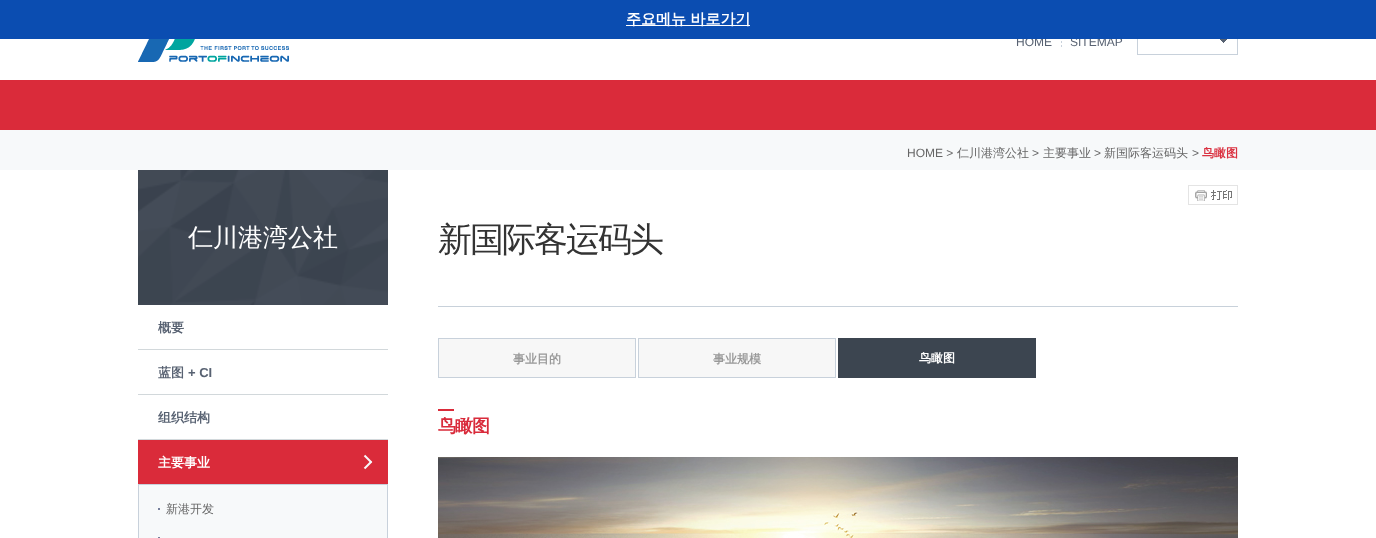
<svg xmlns="http://www.w3.org/2000/svg" width="1376" height="538">
<rect width="100%" height="100%" fill="#fff"/>
<text x="1016" y="46" style="font-family:Liberation Sans;font-size:12px;fill:#586272">HOME</text>
<text x="1070" y="46" style="font-family:Liberation Sans;font-size:12px;fill:#586272">SITEMAP</text>
<image x="1219" y="39" width="9" height="4" href="media/3.png"/>
<rect x="1137.5" y="25.5" width="100" height="29" fill="none" stroke="#c8d1db"/>
<rect width="1376" height="39" fill="#0b4db1"/>
<rect x="626" y="25" width="124" height="1" fill="#fff"/>
<text x="626" y="24" style="font-family:WenQuanYi Zen Hei;font-size:15px;font-weight:bold;fill:#fff">주요메뉴 바로가기</text>
<rect y="80" width="1376" height="50" fill="#da2b3a"/>
<image x="138" y="39" width="151" height="23" href="media/1.png"/>
<image x="1061" y="39" width="1" height="8" href="media/2.png"/>
<rect y="130" width="1376" height="40" fill="#f7f9fa"/>
<image x="138" y="170" width="250" height="135" href="media/4.png"/>
<text x="188" y="246" style="font-family:WenQuanYi Zen Hei;font-size:25px;font-weight:500;fill:#fff">仁川港湾公社</text>
<rect x="138" y="349" width="250" height="1" fill="#d2d8db"/>
<text x="158" y="332" style="font-family:WenQuanYi Zen Hei;font-size:13px;font-weight:bold;fill:#586272">概要</text>
<rect x="138" y="394" width="250" height="1" fill="#d2d8db"/>
<text x="158" y="377" style="font-family:WenQuanYi Zen Hei;font-size:13px;font-weight:bold;fill:#586272">蓝图</text>
<text x="188" y="377" style="font-family:Liberation Sans;font-size:13px;font-weight:bold;fill:#586272">+ CI</text>
<rect x="138" y="439" width="250" height="1" fill="#d2d8db"/>
<text x="158" y="422" style="font-family:WenQuanYi Zen Hei;font-size:13px;font-weight:bold;fill:#586272">组织结构</text>
<image x="138" y="440" width="250" height="44" href="media/5.png"/>
<rect x="138" y="484" width="250" height="1" fill="#c8d1db"/>
<text x="158" y="467" style="font-family:WenQuanYi Zen Hei;font-size:13px;font-weight:bold;fill:#fff">主要事业</text>
<rect x="139" y="485" width="248" height="53" fill="#f7f9fa"/>
<rect x="387" y="485" width="1" height="53" fill="#c8d1db"/>
<rect x="138" y="485" width="1" height="53" fill="#c8d1db"/>
<rect x="158" y="508" width="2" height="2" fill="#757e9b"/>
<text x="166" y="513" style="font-family:WenQuanYi Zen Hei;font-size:12px;font-weight:500;fill:#666">新港开发</text>
<rect x="158" y="537" width="2" height="1" fill="#757e9b"/>
<text x="907" y="157" style="font-family:Liberation Sans;font-size:12px;fill:#666">HOME &gt;</text>
<text x="957" y="157" style="font-family:WenQuanYi Zen Hei;font-size:12px;font-weight:500;fill:#666">仁川港湾公社</text>
<text x="1032" y="157" style="font-family:Liberation Sans;font-size:12px;fill:#666">&gt;</text>
<text x="1043" y="157" style="font-family:WenQuanYi Zen Hei;font-size:12px;font-weight:500;fill:#666">主要事业</text>
<text x="1094" y="157" style="font-family:Liberation Sans;font-size:12px;fill:#666">&gt;</text>
<text x="1104" y="157" style="font-family:WenQuanYi Zen Hei;font-size:12px;font-weight:500;fill:#666">新国际客运码头</text>
<text x="1192" y="157" style="font-family:Liberation Sans;font-size:12px;fill:#666">&gt;</text>
<text x="1202" y="157" style="font-family:WenQuanYi Zen Hei;font-size:12px;font-weight:bold;fill:#da3241">鸟瞰图</text>
<image x="1188" y="185" width="50" height="20" href="media/6.png"/>
<rect x="438" y="306" width="800" height="1" fill="#c8d1da"/>
<text x="438" y="251" style="font-family:WenQuanYi Zen Hei;font-size:34px;font-weight:500;letter-spacing:-2px;fill:#333">新国际客运码头</text>
<rect x="438.5" y="338.5" width="197" height="39" fill="#f7f7f7" stroke="#c8d1db"/>
<text x="513" y="363" style="font-family:WenQuanYi Zen Hei;font-size:12px;font-weight:bold;fill:#999">事业目的</text>
<rect x="638.5" y="338.5" width="197" height="39" fill="#f7f7f7" stroke="#c8d1db"/>
<text x="713" y="363" style="font-family:WenQuanYi Zen Hei;font-size:12px;font-weight:bold;fill:#999">事业规模</text>
<rect x="838" y="338" width="198" height="40" fill="#3c4550"/>
<text x="919" y="362" style="font-family:WenQuanYi Zen Hei;font-size:12px;font-weight:bold;fill:#fff">鸟瞰图</text>
<rect x="438" y="409" width="16" height="2" fill="#da2b3a"/>
<text x="438" y="432" style="font-family:WenQuanYi Zen Hei;font-size:18px;font-weight:bold;letter-spacing:-1px;fill:#d92b3b">鸟瞰图</text>
<image x="438" y="457" width="800" height="81" href="media/7.png"/>
</svg>
